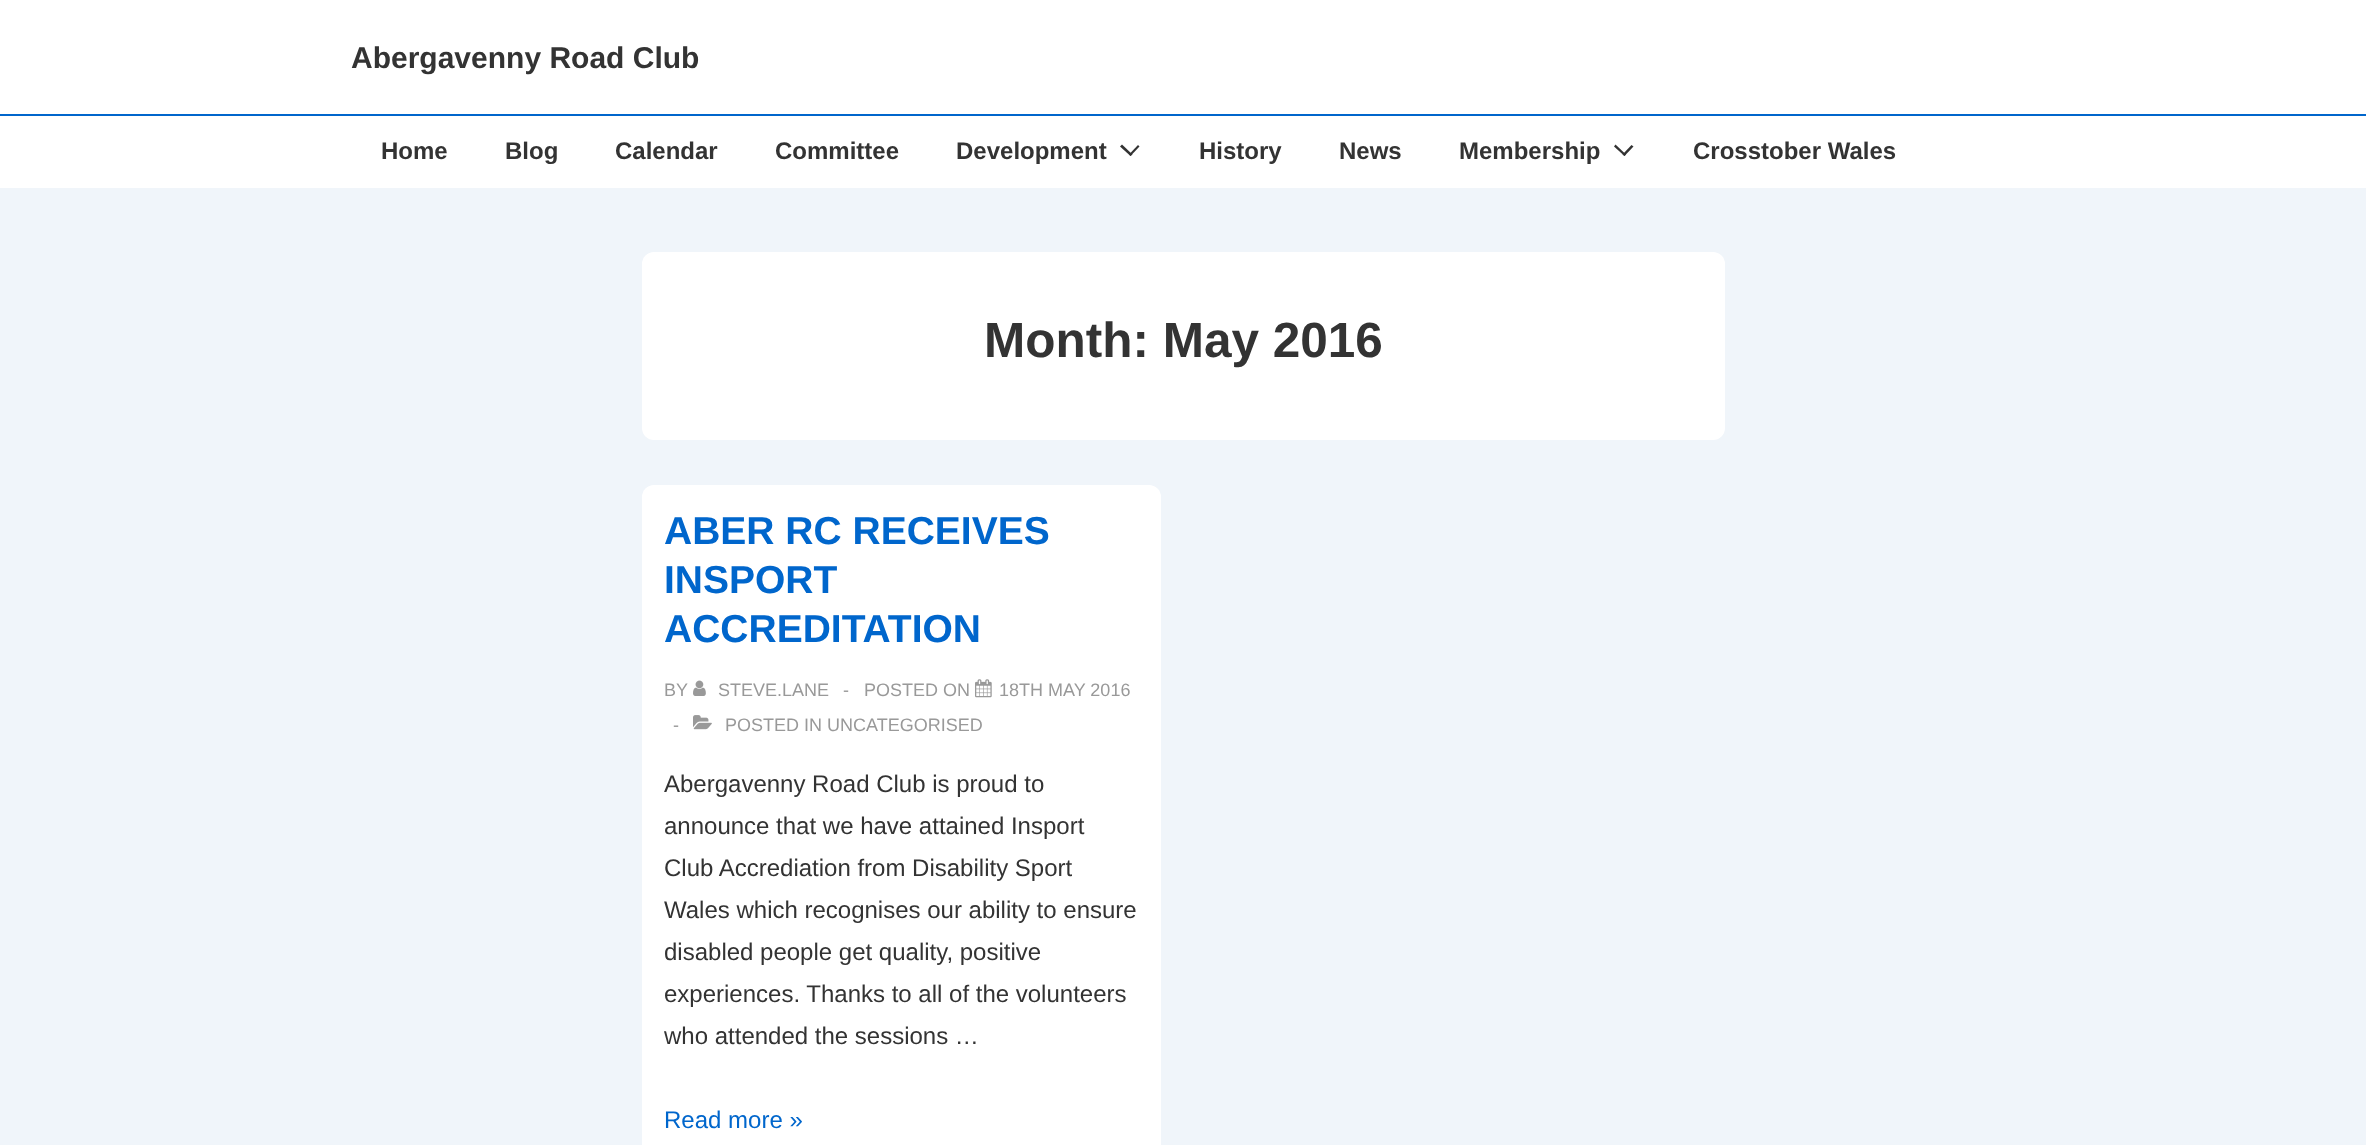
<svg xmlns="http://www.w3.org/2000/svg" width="2366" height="1145">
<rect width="100%" height="100%" fill="#f0f5fa"/>
<rect width="2366" height="114" fill="#fff"/>
<rect y="114" width="2366" height="2" fill="#06c"/>
<text x="351" y="68" style="font-family:Liberation Sans;font-size:30px;font-weight:bold;fill:#333">Abergavenny Road Club</text>
<rect y="116" width="2366" height="72" fill="#fff"/>
<text x="381" y="159" style="font-family:Liberation Sans;font-size:24px;font-weight:bold;fill:#333">Home</text>
<text x="505" y="159" style="font-family:Liberation Sans;font-size:24px;font-weight:bold;fill:#333">Blog</text>
<text x="615" y="159" style="font-family:Liberation Sans;font-size:24px;font-weight:bold;fill:#333">Calendar</text>
<text x="775" y="159" style="font-family:Liberation Sans;font-size:24px;font-weight:bold;fill:#333">Committee</text>
<text x="956" y="159" style="font-family:Liberation Sans;font-size:24px;font-weight:bold;fill:#333">Development</text>
<path d="M1120 146.5l2-2l10.5 10l-2 1.5z" fill="#333"/>
<path d="M1129 154.5l9-9.5l1.5 1.5l-9 9.5z" fill="#333"/>
<text x="1199" y="159" style="font-family:Liberation Sans;font-size:24px;font-weight:bold;fill:#333">History</text>
<text x="1339" y="159" style="font-family:Liberation Sans;font-size:24px;font-weight:bold;fill:#333">News</text>
<text x="1459" y="159" style="font-family:Liberation Sans;font-size:24px;font-weight:bold;fill:#333">Membership</text>
<path d="M1614 146.5l1.5-2l10.5 10l-1.5 1.5z" fill="#333"/>
<path d="M1622.5 154.5l9-9.5l2 1.5l-9 9.5z" fill="#333"/>
<text x="1693" y="159" style="font-family:Liberation Sans;font-size:24px;font-weight:bold;fill:#333">Crosstober Wales</text>
<rect x="642" y="252" width="1083" height="188" rx="12" fill="#fff"/>
<text x="984" y="357" style="font-family:Liberation Sans;font-size:49.5px;font-weight:bold;fill:#333">Month: May 2016</text>
<rect x="642" y="485" width="519" height="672" rx="12" fill="#fff"/>
<text x="664" y="544" style="font-family:Liberation Sans;font-size:39px;font-weight:bold;fill:#06c">ABER RC RECEIVES</text>
<text x="664" y="593" style="font-family:Liberation Sans;font-size:39px;font-weight:bold;fill:#06c">INSPORT</text>
<text x="664" y="642" style="font-family:Liberation Sans;font-size:39px;font-weight:bold;fill:#06c">ACCREDITATION</text>
<text x="664" y="696" style="font-family:Liberation Sans;font-size:18px;fill:#999">BY</text>
<image x="693" y="680" width="13" height="16" href="media/1.png"/>
<text x="718" y="696" style="font-family:Liberation Sans;font-size:18px;fill:#999">STEVE.LANE</text>
<text x="843" y="696" style="font-family:Liberation Sans;font-size:18px;fill:#999">-</text>
<text x="864" y="696" style="font-family:Liberation Sans;font-size:18px;fill:#999">POSTED ON</text>
<image x="975" y="679" width="17" height="19" href="media/2.png"/>
<text x="999" y="696" style="font-family:Liberation Sans;font-size:18px;fill:#999">18TH MAY 2016</text>
<text x="673" y="731" style="font-family:Liberation Sans;font-size:18px;fill:#999">-</text>
<image x="693" y="715" width="19" height="15" href="media/3.png"/>
<text x="725" y="731" style="font-family:Liberation Sans;font-size:18px;fill:#999">POSTED IN UNCATEGORISED</text>
<text x="664" y="792" style="font-family:Liberation Sans;font-size:24px;fill:#333">Abergavenny Road Club is proud to</text>
<text x="664" y="834" style="font-family:Liberation Sans;font-size:24px;fill:#333">announce that we have attained Insport</text>
<text x="664" y="876" style="font-family:Liberation Sans;font-size:24px;fill:#333">Club Accrediation from Disability Sport</text>
<text x="664" y="918" style="font-family:Liberation Sans;font-size:24px;fill:#333">Wales which recognises our ability to ensure</text>
<text x="664" y="960" style="font-family:Liberation Sans;font-size:24px;fill:#333">disabled people get quality, positive</text>
<text x="664" y="1002" style="font-family:Liberation Sans;font-size:24px;fill:#333">experiences. Thanks to all of the volunteers</text>
<text x="664" y="1044" style="font-family:Liberation Sans;font-size:24px;fill:#333">who attended the sessions …</text>
<text x="664" y="1128" style="font-family:Liberation Sans;font-size:24px;fill:#06c">Read more »</text>
</svg>
